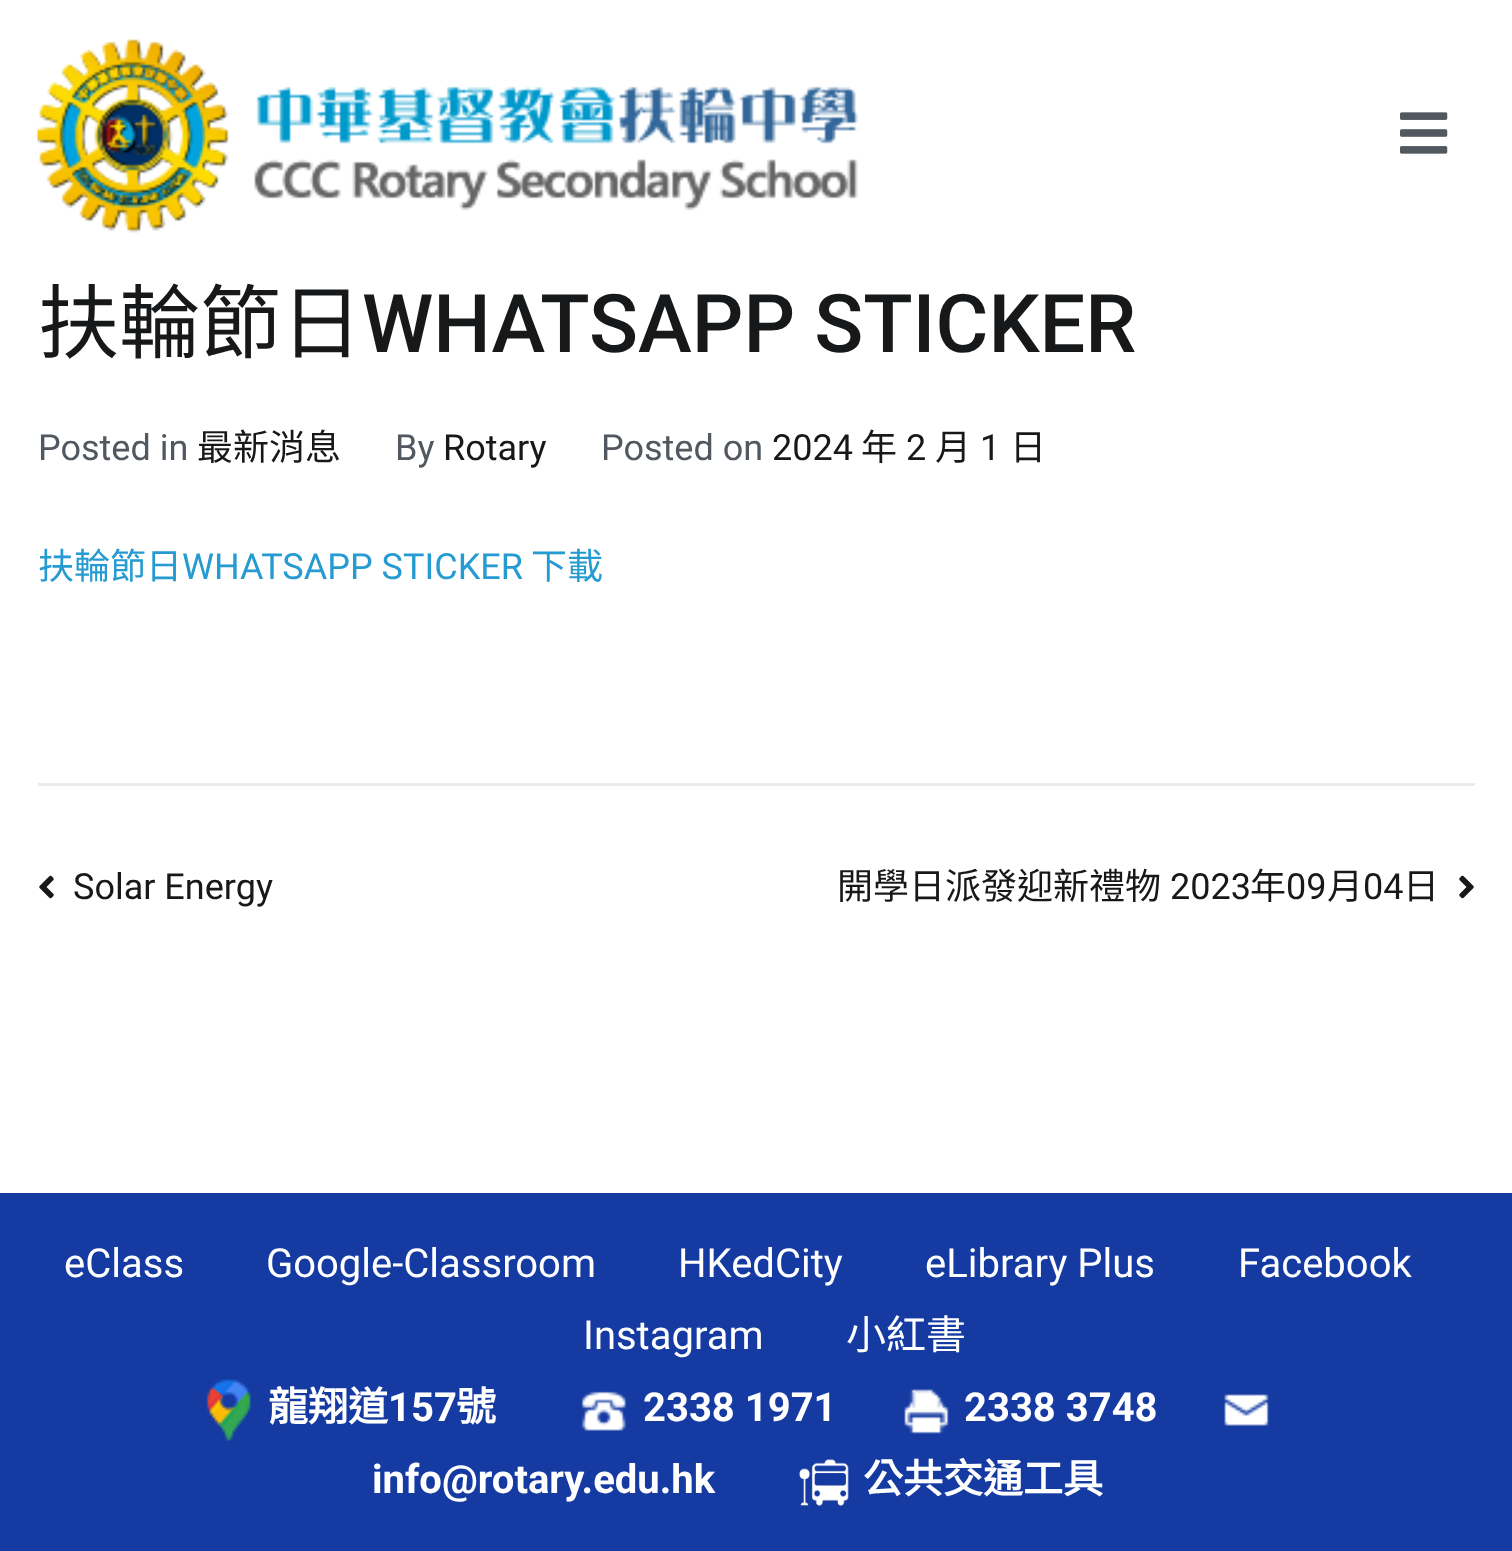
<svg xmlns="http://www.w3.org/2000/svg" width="1512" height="1551">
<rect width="100%" height="100%" fill="#fff"/>
<image x="37" y="39" width="822" height="194" href="media/1.png"/>
<image x="1400" y="112" width="48" height="42" href="media/2.png"/>
<text x="38" y="352" style="font-family:Noto Sans CJK TC;font-size:81px;fill:#16181a">扶輪節日</text>
<text x="362" y="352" word-spacing="-1" style="font-family:Roboto;font-size:81px;font-weight:500;fill:#16181a">WHATSAPP STICKER</text>
<text x="38" y="460" style="font-family:Roboto;font-size:36px;fill:#51585f">Posted in</text>
<text x="197" y="460" style="font-family:Noto Sans CJK TC;font-size:36px;fill:#16181a">最新消息</text>
<text x="395" y="460" style="font-family:Roboto;font-size:36px;fill:#51585f">By</text>
<text x="443" y="460" style="font-family:Roboto;font-size:36px;fill:#16181a">Rotary</text>
<text x="601" y="460" style="font-family:Roboto;font-size:36px;fill:#51585f">Posted on</text>
<text x="772" y="460" style="font-family:Roboto;font-size:36px;fill:#16181a">2024</text>
<text x="861" y="460" style="font-family:Noto Sans CJK TC;font-size:36px;fill:#16181a">年</text>
<text x="906" y="460" style="font-family:Roboto;font-size:36px;fill:#16181a">2</text>
<text x="935" y="460" style="font-family:Noto Sans CJK TC;font-size:36px;fill:#16181a">月</text>
<text x="980" y="460" style="font-family:Roboto;font-size:36px;fill:#16181a">1</text>
<text x="1010" y="460" style="font-family:Noto Sans CJK TC;font-size:36px;fill:#16181a">日</text>
<text x="38" y="579" style="font-family:Noto Sans CJK TC;font-size:36px;fill:#269bd1">扶輪節日</text>
<text x="182" y="579" style="font-family:Roboto;font-size:36px;fill:#269bd1">WHATSAPP STICKER</text>
<text x="531" y="579" style="font-family:Noto Sans CJK TC;font-size:36px;fill:#269bd1">下載</text>
<rect x="38" y="783" width="1437" height="3" fill="#e9ecef"/>
<image x="39" y="875" width="15" height="24" href="media/3.png"/>
<text x="73" y="899" style="font-family:Roboto;font-size:36px;fill:#16181a">Solar Energy</text>
<text x="837" y="899" style="font-family:Noto Sans CJK TC;font-size:36px;fill:#16181a">開學日派發迎新禮物</text>
<text x="1170" y="899" style="font-family:Roboto;font-size:36px;fill:#16181a">2023</text>
<text x="1250" y="899" style="font-family:Noto Sans CJK TC;font-size:36px;fill:#16181a">年</text>
<text x="1286" y="899" style="font-family:Roboto;font-size:36px;fill:#16181a">09</text>
<text x="1327" y="899" style="font-family:Noto Sans CJK TC;font-size:36px;fill:#16181a">月</text>
<text x="1363" y="899" style="font-family:Roboto;font-size:36px;fill:#16181a">04</text>
<text x="1403" y="899" style="font-family:Noto Sans CJK TC;font-size:36px;fill:#16181a">日</text>
<image x="1459" y="875" width="15" height="24" href="media/4.png"/>
<rect y="1193" width="1512" height="358" fill="#153ba3"/>
<text x="64" y="1277" style="font-family:Roboto;font-size:40px;fill:#fff">eClass</text>
<text x="266" y="1277" style="font-family:Roboto;font-size:40px;fill:#fff">Google-Classroom</text>
<text x="678" y="1277" style="font-family:Roboto;font-size:40px;fill:#fff">HKedCity</text>
<text x="925" y="1277" style="font-family:Roboto;font-size:40px;fill:#fff">eLibrary Plus</text>
<text x="1238" y="1277" style="font-family:Roboto;font-size:40px;fill:#fff">Facebook</text>
<text x="583" y="1349" style="font-family:Roboto;font-size:40px;fill:#fff">Instagram</text>
<text x="846" y="1349" style="font-family:Noto Sans CJK TC;font-size:40px;fill:#fff">小紅書</text>
<image x="206" y="1379" width="45" height="62" href="media/5.png"/>
<text x="268" y="1421" style="font-family:Noto Sans CJK TC;font-size:40px;font-weight:bold;fill:#fff">龍翔道</text>
<text x="388" y="1421" style="font-family:Roboto;font-size:40px;font-weight:bold;fill:#fff">157</text>
<text x="456" y="1421" style="font-family:Noto Sans CJK TC;font-size:40px;font-weight:bold;fill:#fff">號</text>
<image x="581" y="1391" width="45" height="40" href="media/6.png"/>
<text x="643" y="1421" style="font-family:Roboto;font-size:40px;font-weight:bold;fill:#fff">2338 1971</text>
<image x="904" y="1389" width="45" height="45" href="media/7.png"/>
<text x="964" y="1421" style="font-family:Roboto;font-size:40px;font-weight:bold;fill:#fff">2338 3748</text>
<image x="1224" y="1394" width="45" height="32" href="media/8.png"/>
<text x="372" y="1493" style="font-family:Roboto;font-size:40px;font-weight:bold;fill:#fff">info@rotary.edu.hk</text>
<image x="799" y="1459" width="50" height="47" href="media/9.png"/>
<text x="863" y="1493" style="font-family:Noto Sans CJK TC;font-size:40px;font-weight:bold;fill:#fff">公共交通工具</text>
</svg>
